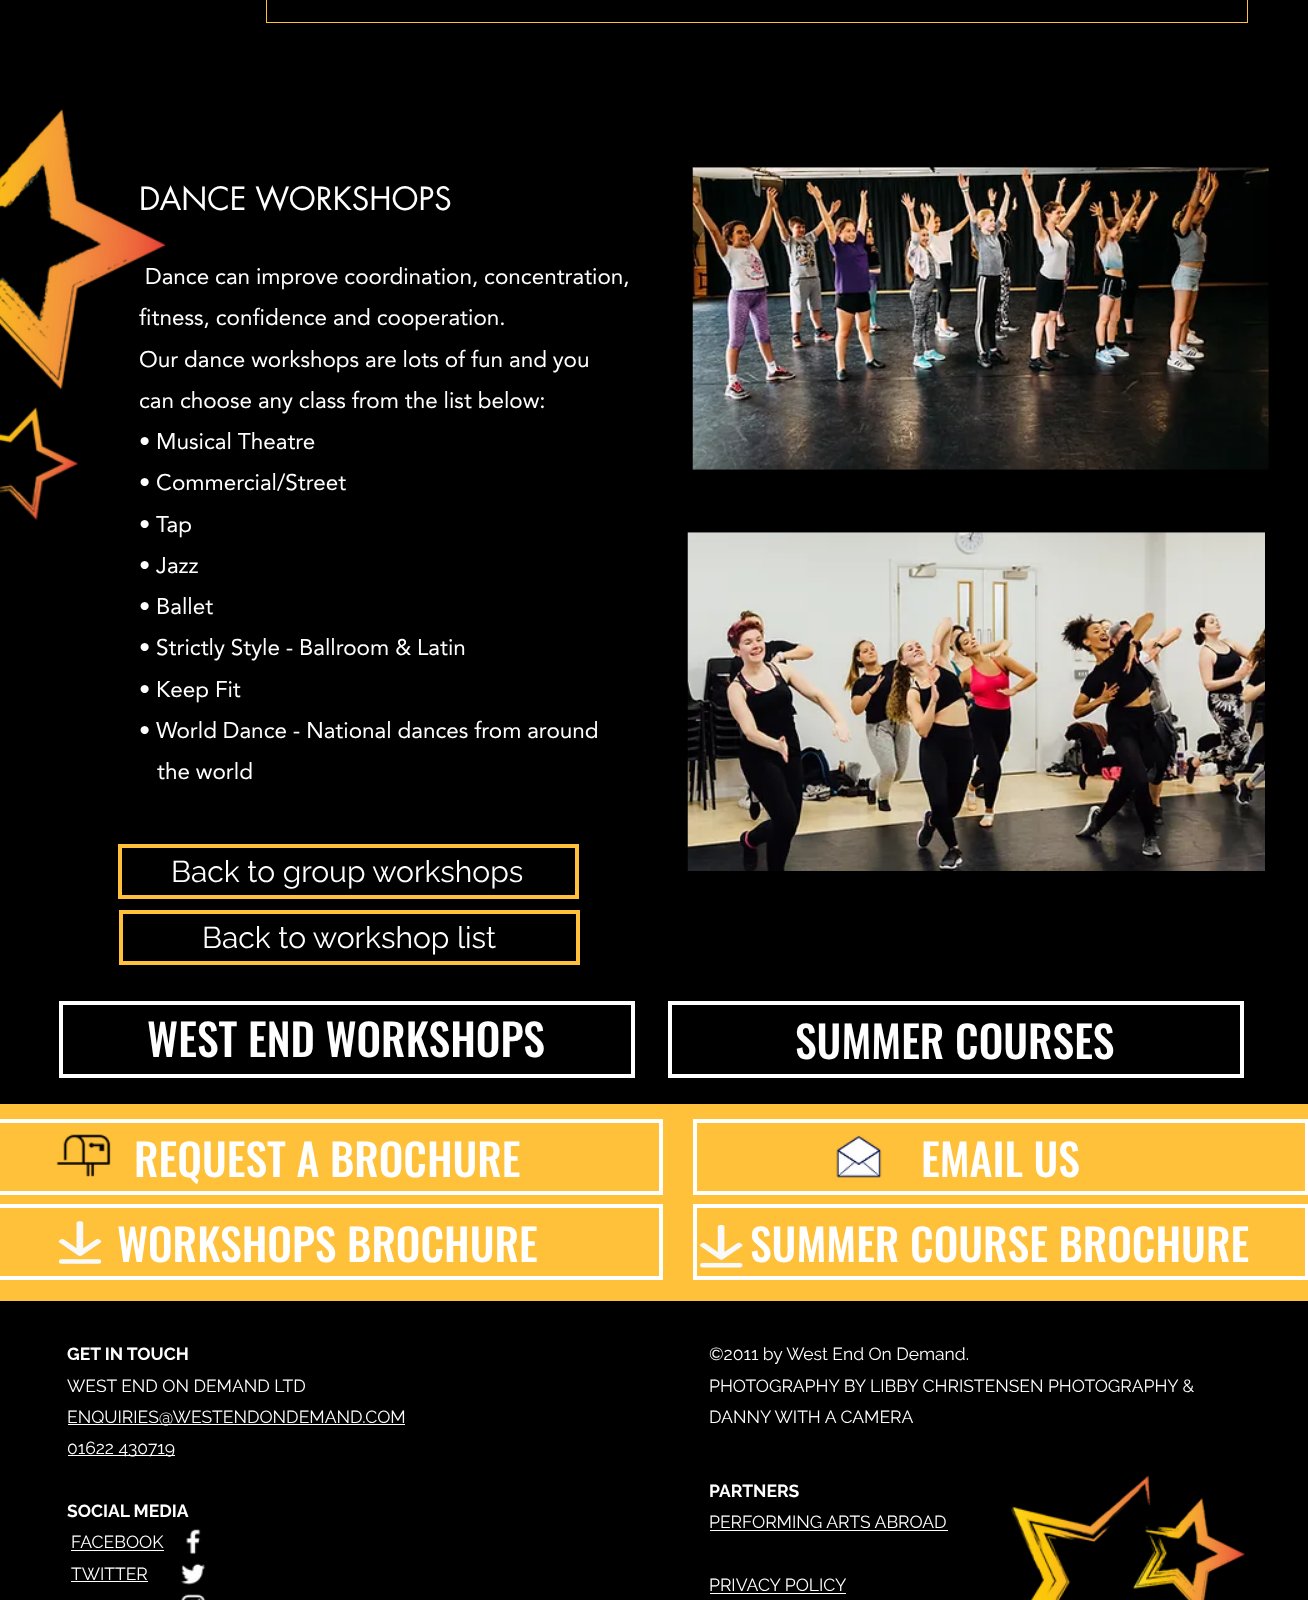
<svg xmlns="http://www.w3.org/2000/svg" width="1308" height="1600">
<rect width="100%" height="100%" fill="#000"/>
<rect x="266.5" y="-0.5" width="981" height="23" fill="none" stroke="#ffc03a"/>
<text x="139" y="210" style="font-family:futura;font-size:31.25px;fill:#fff">DANCE WORKSHOPS</text>
<text x="145" y="284" style="font-family:'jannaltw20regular';font-size:22.5px;fill:#fff">Dance can improve coordination, concentration,</text>
<text x="139" y="325" style="font-family:'jannaltw20regular';font-size:22.5px;fill:#fff">fitness, confidence and cooperation.</text>
<text x="139" y="367" style="font-family:'jannaltw20regular';font-size:22.5px;fill:#fff">Our dance workshops are lots of fun and you</text>
<text x="139" y="408" style="font-family:'jannaltw20regular';font-size:22.5px;fill:#fff">can choose any class from the list below:</text>
<text x="139" y="449" style="font-family:'jannaltw20regular';font-size:22.5px;fill:#fff">• Musical Theatre</text>
<text x="139" y="490" style="font-family:'jannaltw20regular';font-size:22.5px;fill:#fff">• Commercial/Street</text>
<text x="139" y="532" style="font-family:'jannaltw20regular';font-size:22.5px;fill:#fff">• Tap</text>
<image x="0" y="109" width="166" height="411" href="media/1.png"/>
<text x="139" y="573" style="font-family:'jannaltw20regular';font-size:22.5px;fill:#fff">• Jazz</text>
<text x="139" y="614" style="font-family:'jannaltw20regular';font-size:22.5px;fill:#fff">• Ballet</text>
<text x="139" y="655" style="font-family:'jannaltw20regular';font-size:22.5px;fill:#fff">• Strictly Style - Ballroom &amp; Latin</text>
<text x="139" y="697" style="font-family:'jannaltw20regular';font-size:22.5px;fill:#fff">• Keep Fit</text>
<text x="139" y="738" style="font-family:'jannaltw20regular';font-size:22.5px;fill:#fff">• World Dance - National dances from around</text>
<text x="157" y="779" style="font-family:'jannaltw20regular';font-size:22.5px;fill:#fff">the world</text>
<image x="692" y="167" width="577" height="303" href="media/2.png"/>
<image x="687" y="532" width="578" height="339" href="media/3.png"/>
<rect x="120" y="846" width="457" height="51" fill="none" stroke="#ffc03a" stroke-width="4"/>
<text x="171" y="882" style="font-family:Raleway;font-size:30px;fill:#fff">Back to group workshops</text>
<rect x="121" y="912" width="457" height="51" fill="none" stroke="#ffc03a" stroke-width="4"/>
<text x="202" y="948" style="font-family:Raleway;font-size:30px;fill:#fff">Back to workshop list</text>
<rect x="61" y="1003" width="572" height="73" fill="none" stroke="#fff" stroke-width="4"/>
<text x="147" y="1057" style="font-family:Oswald;font-size:43.75px;font-weight:500;fill:#fff">WEST END WORKSHOPS</text>
<rect x="670" y="1003" width="572" height="73" fill="none" stroke="#fff" stroke-width="4"/>
<text x="795" y="1059" style="font-family:Oswald;font-size:43.75px;font-weight:500;fill:#fff">SUMMER COURSES</text>
<rect y="1104" width="1308" height="197" fill="#ffc03a"/>
<rect x="-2" y="1121" width="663" height="72" fill="none" stroke="#fff" stroke-width="4"/>
<image x="56" y="1134" width="55" height="43" href="media/4.png"/>
<text x="134" y="1177" style="font-family:Oswald;font-size:43.75px;font-weight:500;fill:#fff">REQUEST A BROCHURE</text>
<rect x="695" y="1121" width="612" height="72" fill="none" stroke="#fff" stroke-width="4"/>
<image x="836" y="1135" width="46" height="43" href="media/5.png"/>
<text x="921" y="1177" style="font-family:Oswald;font-size:43.75px;font-weight:500;fill:#fff">EMAIL US</text>
<rect x="-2" y="1206" width="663" height="72" fill="none" stroke="#fff" stroke-width="4"/>
<image x="58" y="1221" width="44" height="43" href="media/6.png"/>
<text x="117" y="1262" style="font-family:Oswald;font-size:43.75px;font-weight:500;fill:#fff">WORKSHOPS BROCHURE</text>
<rect x="695" y="1206" width="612" height="72" fill="none" stroke="#fff" stroke-width="4"/>
<image x="700" y="1225" width="43" height="43" href="media/7.png"/>
<text x="750" y="1262" style="font-family:Oswald;font-size:43.75px;font-weight:500;fill:#fff">SUMMER COURSE BROCHURE</text>
<text x="67" y="1360" style="font-family:Raleway;font-size:17.5px;font-weight:bold;fill:#fff">GET IN TOUCH</text>
<text x="67" y="1392" style="font-family:Raleway;font-size:17.5px;fill:#fff">WEST END ON DEMAND LTD</text>
<rect x="68" y="1424" width="337" height="1" fill="#fff"/>
<text x="67" y="1423" style="font-family:Raleway;font-size:17.5px;fill:#fff">ENQUIRIES@WESTENDONDEMAND.COM</text>
<rect x="68" y="1455" width="107" height="1" fill="#fff"/>
<text x="67" y="1454" style="font-family:Raleway;font-size:17.5px;fill:#fff">01622 430719</text>
<text x="67" y="1517" style="font-family:Raleway;font-size:17.5px;font-weight:bold;fill:#fff">SOCIAL MEDIA</text>
<text x="71" y="1548" style="font-family:Raleway;font-size:17.5px;fill:#fff">FACEBOOK</text>
<rect x="71" y="1550" width="93" height="1" fill="#fff"/>
<text x="71" y="1580" style="font-family:Raleway;font-size:17.5px;fill:#fff">TWITTER</text>
<rect x="71" y="1581" width="77" height="1" fill="#fff"/>
<text x="709" y="1360" style="font-family:Raleway;font-size:17.5px;fill:#fff">©2011 by West End On Demand.</text>
<text x="709" y="1392" style="font-family:Raleway;font-size:17.5px;fill:#fff">PHOTOGRAPHY BY LIBBY CHRISTENSEN PHOTOGRAPHY &amp;</text>
<text x="709" y="1423" style="font-family:Raleway;font-size:17.5px;fill:#fff">DANNY WITH A CAMERA</text>
<image x="186" y="1529" width="15" height="25" href="media/8.png"/>
<image x="181" y="1563" width="25" height="22" href="media/9.png"/>
<image x="181" y="1594" width="25" height="6" href="media/10.png"/>
<text x="709" y="1497" style="font-family:Raleway;font-size:17.5px;font-weight:bold;fill:#fff">PARTNERS</text>
<text x="709" y="1528" style="font-family:Raleway;font-size:17.5px;fill:#fff">PERFORMING ARTS ABROAD</text>
<rect x="710" y="1530" width="238" height="1" fill="#fff"/>
<text x="709" y="1591" style="font-family:Raleway;font-size:17.5px;fill:#fff">PRIVACY POLICY</text>
<rect x="710" y="1593" width="136" height="1" fill="#fff"/>
<image x="1010" y="1476" width="235" height="124" href="media/11.png"/>
</svg>
